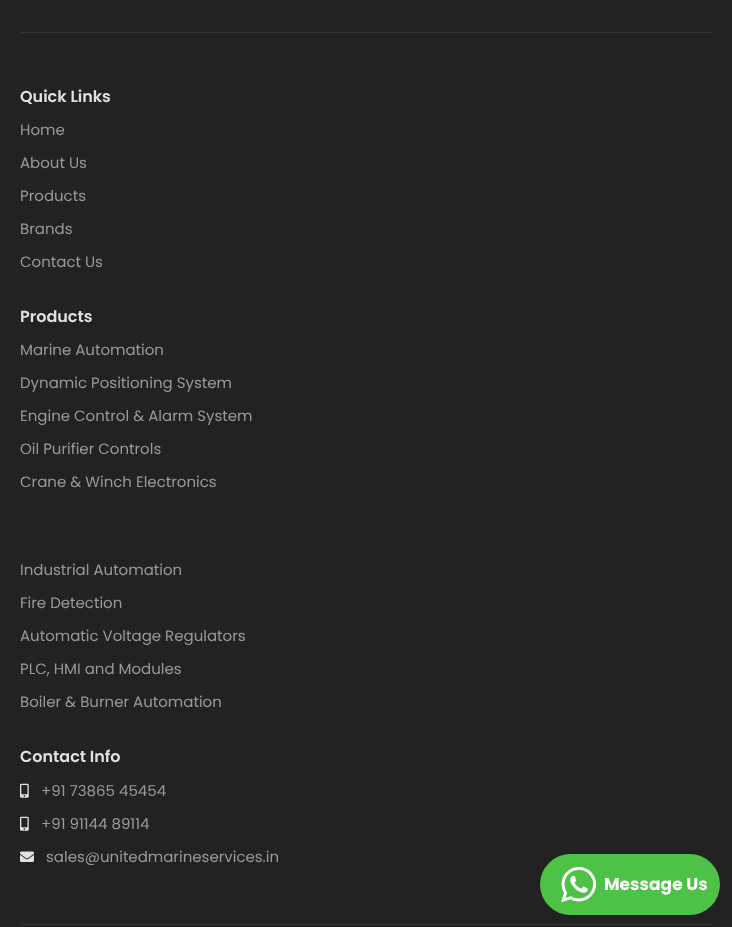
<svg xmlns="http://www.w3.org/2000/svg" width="732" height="927">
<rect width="100%" height="100%" fill="#222"/>
<rect x="20" y="32" width="692" height="1" fill="#333"/>
<rect x="20" y="924" width="692" height="1" fill="#333"/>
<text x="20" y="102" style="font-family:Poppins;font-size:16px;font-weight:600;fill:#e1e1e1">Quick Links</text>
<text x="20" y="135" style="font-family:Poppins;font-size:15px;fill:#999">Home</text>
<text x="20" y="168" style="font-family:Poppins;font-size:15px;fill:#999">About Us</text>
<text x="20" y="201" style="font-family:Poppins;font-size:15px;fill:#999">Products</text>
<text x="20" y="234" style="font-family:Poppins;font-size:15px;fill:#999">Brands</text>
<text x="20" y="267" style="font-family:Poppins;font-size:15px;fill:#999">Contact Us</text>
<text x="20" y="322" style="font-family:Poppins;font-size:16px;font-weight:600;fill:#e1e1e1">Products</text>
<text x="20" y="355" style="font-family:Poppins;font-size:15px;fill:#999">Marine Automation</text>
<text x="20" y="388" style="font-family:Poppins;font-size:15px;fill:#999">Dynamic Positioning System</text>
<text x="20" y="421" style="font-family:Poppins;font-size:15px;fill:#999">Engine Control &amp; Alarm System</text>
<text x="20" y="454" style="font-family:Poppins;font-size:15px;fill:#999">Oil Purifier Controls</text>
<text x="20" y="487" style="font-family:Poppins;font-size:15px;fill:#999">Crane &amp; Winch Electronics</text>
<text x="20" y="575" style="font-family:Poppins;font-size:15px;fill:#999">Industrial Automation</text>
<text x="20" y="608" style="font-family:Poppins;font-size:15px;fill:#999">Fire Detection</text>
<text x="20" y="641" style="font-family:Poppins;font-size:15px;fill:#999">Automatic Voltage Regulators</text>
<text x="20" y="674" style="font-family:Poppins;font-size:15px;fill:#999">PLC, HMI and Modules</text>
<text x="20" y="707" style="font-family:Poppins;font-size:15px;fill:#999">Boiler &amp; Burner Automation</text>
<text x="20" y="762" style="font-family:Poppins;font-size:16px;font-weight:600;fill:#e1e1e1">Contact Info</text>
<image x="20" y="783" width="9" height="15" href="media/1.png"/>
<text x="41" y="796" style="font-family:Poppins;font-size:15px;fill:#999">+91 73865 45454</text>
<image x="20" y="816" width="9" height="15" href="media/1.png"/>
<text x="41" y="829" style="font-family:Poppins;font-size:15px;fill:#999">+91 91144 89114</text>
<image x="20" y="851" width="14" height="11" href="media/2.png"/>
<text x="46" y="862" style="font-family:Poppins;font-size:15px;fill:#999">sales@unitedmarineservices.in</text>
<rect x="540" y="854" width="180" height="61" rx="30.5" fill="#4dc247"/>
<image x="561" y="867" width="35" height="36" href="media/3.png"/>
<text x="604" y="890" style="font-family:Poppins;font-size:17px;font-weight:bold;fill:#fff">Message Us</text>
</svg>
